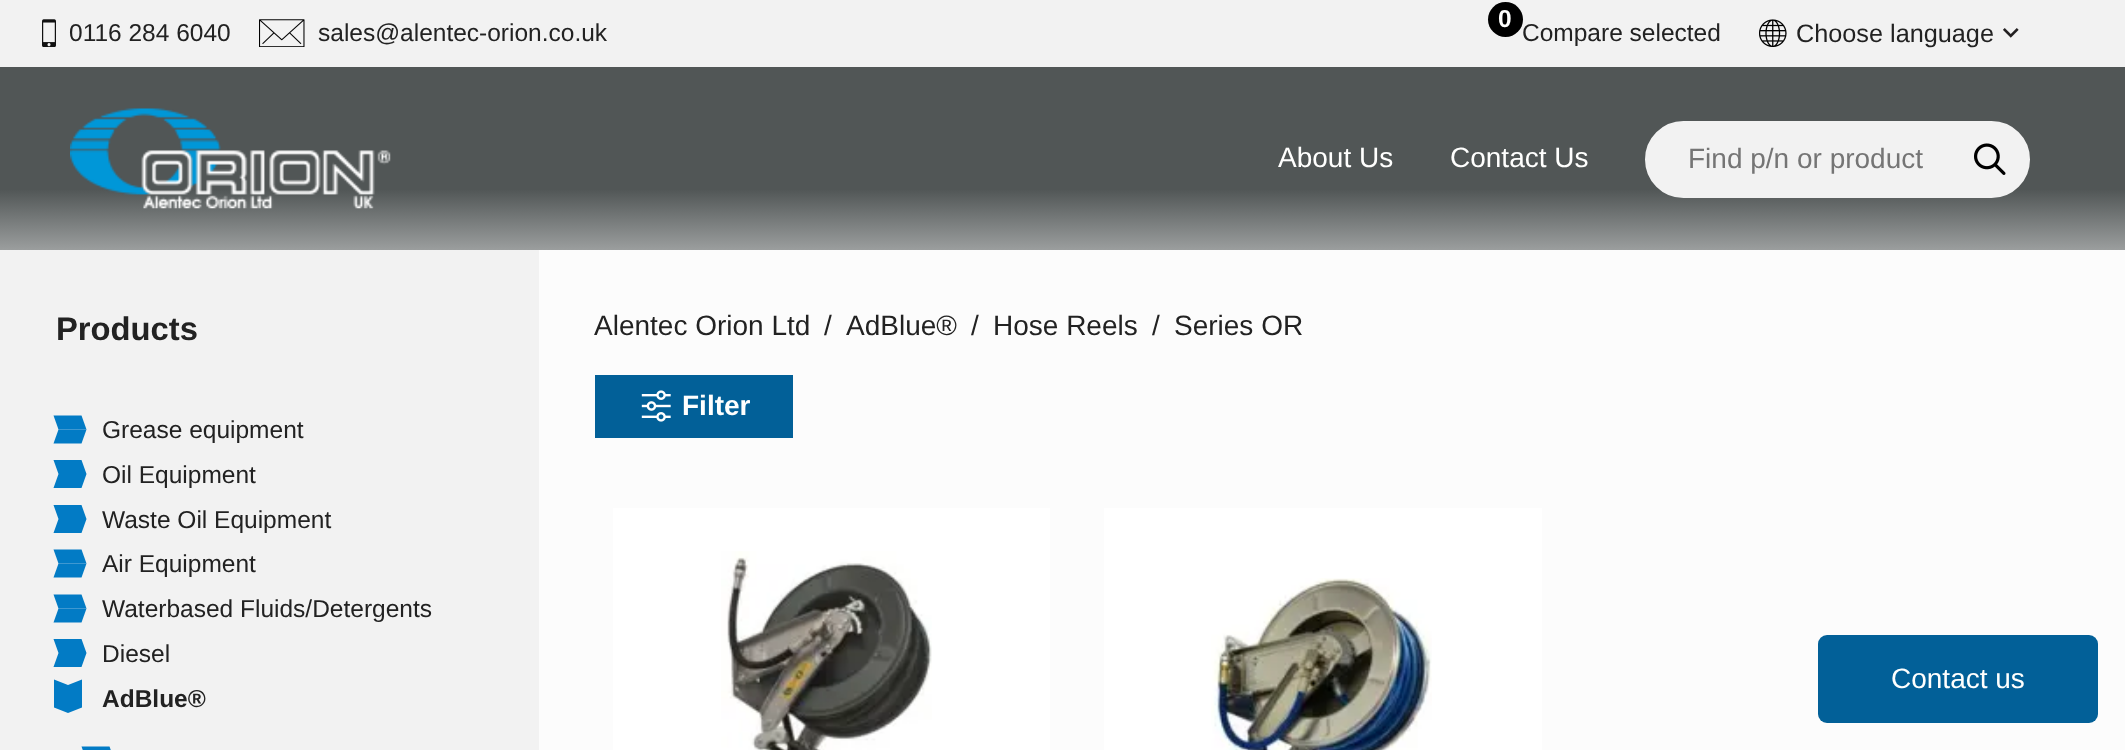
<svg xmlns="http://www.w3.org/2000/svg" width="2125" height="750">
<defs>
<linearGradient id="g1" gradientUnits="userSpaceOnUse" x1="1063" y1="66" x2="1063" y2="250"><stop offset="0.67" stop-color="#515656"/><stop offset="1" stop-color="#9b9e9e"/></linearGradient>
</defs>
<rect width="100%" height="100%" fill="#fcfcfc"/>
<rect width="2125" height="67" fill="#f2f2f2"/>
<image x="42" y="19" width="14" height="28" href="media/1.png"/>
<text x="69" y="41" style="font-family:Liberation Sans;font-size:24.5px;fill:#222">0116 284 6040</text>
<image x="259" y="19" width="46" height="28" href="media/2.png"/>
<text x="318" y="41" style="font-family:Liberation Sans;font-size:24.5px;fill:#222">sales@alentec-orion.co.uk</text>
<circle cx="1505.5" cy="19.5" r="17.5" fill="#000"/>
<text x="1498" y="27" style="font-family:Liberation Sans;font-size:24.5px;font-weight:bold;fill:#fffffe">0</text>
<text x="1522" y="41" style="font-family:Liberation Sans;font-size:24.5px;fill:#222">Compare selected</text>
<image x="1759" y="19" width="28" height="28" href="media/3.png"/>
<text x="1796" y="42" style="font-family:Liberation Sans;font-size:25.25px;fill:#222">Choose language</text>
<image x="2003" y="28" width="16" height="10" href="media/4.png"/>
<rect y="67" width="2125" height="183" fill="url(#g1)"/>
<image x="70" y="108" width="321" height="101" href="media/5.png"/>
<text x="1278" y="167" style="font-family:Liberation Sans;font-size:28px;fill:#fffffe">About Us</text>
<text x="1450" y="167" style="font-family:Liberation Sans;font-size:28px;fill:#fffffe">Contact Us</text>
<rect x="1646" y="122" width="383" height="75" rx="37.5" fill="#f2f2f2" stroke="#f2f2f2" stroke-width="2"/>
<text x="1688" y="168" style="font-family:Liberation Sans;font-size:28px;fill:#757575">Find p/n or product</text>
<image x="1974" y="143" width="32" height="32" href="media/6.png"/>
<rect y="250" width="539" height="500" fill="#f2f2f2"/>
<text x="56" y="340" style="font-family:Liberation Sans;font-size:32.75px;font-weight:bold;fill:#222">Products</text>
<path d="M58.5 429.5h28l-5 14h-28z" fill="#027bc5"/>
<path d="M53.5 415.5h28l5 14h-28z" fill="#027bc5"/>
<text x="102" y="438" style="font-family:Liberation Sans;font-size:24.5px;fill:#222">Grease equipment</text>
<path d="M58.5 474h28l-5 14h-28zm-5-14h28l5 14h-28z" fill="#027bc5"/>
<text x="102" y="483" style="font-family:Liberation Sans;font-size:24.5px;fill:#222">Oil Equipment</text>
<path d="M58.5 519h28l-5 14h-28zm-5-14h28l5 14h-28z" fill="#027bc5"/>
<text x="102" y="528" style="font-family:Liberation Sans;font-size:24.5px;fill:#222">Waste Oil Equipment</text>
<path d="M58.5 563.5h28l-5 14h-28z" fill="#027bc5"/>
<path d="M53.5 549.5h28l5 14h-28z" fill="#027bc5"/>
<text x="102" y="572" style="font-family:Liberation Sans;font-size:24.5px;fill:#222">Air Equipment</text>
<path d="M58.5 608.5h28l-5 14h-28z" fill="#027bc5"/>
<path d="M53.5 594.5h28l5 14h-28z" fill="#027bc5"/>
<text x="102" y="617" style="font-family:Liberation Sans;font-size:24.5px;fill:#222">Waterbased Fluids/Detergents</text>
<path d="M58.5 653h28l-5 14h-28zm-5-14h28l5 14h-28z" fill="#027bc5"/>
<text x="102" y="662" style="font-family:Liberation Sans;font-size:24.5px;fill:#222">Diesel</text>
<path d="M68 685v28l-14-5.5v-28zm14-5.5v28l-14 5.5v-28z" fill="#027bc5"/>
<text x="102" y="707" style="font-family:Liberation Sans;font-size:24.5px;font-weight:bold;fill:#222">AdBlue®</text>
<path d="M81.5 746.5h28l5 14h-28z" fill="#027bc5"/>
<text x="594" y="335" style="font-family:Liberation Sans;font-size:28px;fill:#222">Alentec Orion Ltd</text>
<text x="824" y="335" style="font-family:Liberation Sans;font-size:28px;fill:#222">/</text>
<text x="846" y="335" style="font-family:Liberation Sans;font-size:28px;fill:#222">AdBlue®</text>
<text x="971" y="335" style="font-family:Liberation Sans;font-size:28px;fill:#222">/</text>
<text x="993" y="335" style="font-family:Liberation Sans;font-size:28px;fill:#222">Hose Reels</text>
<text x="1152" y="335" style="font-family:Liberation Sans;font-size:28px;fill:#222">/</text>
<text x="1174" y="335" style="font-family:Liberation Sans;font-size:28px;fill:#222">Series OR</text>
<rect x="595" y="375" width="198" height="63" fill="#026098"/>
<image x="641" y="390" width="30" height="32" href="media/7.png"/>
<text x="682" y="415" style="font-family:Liberation Sans;font-size:28px;font-weight:bold;fill:#fffffe">Filter</text>
<rect x="613" y="508" width="437" height="242" fill="#fff"/>
<image x="721" y="551" width="211" height="199" href="media/8.png"/>
<rect x="1104" y="508" width="438" height="242" fill="#fff"/>
<image x="1211" y="578" width="221" height="172" href="media/9.png"/>
<rect x="1818" y="635" width="280" height="88" rx="9" fill="#026098"/>
<text x="1891" y="688" style="font-family:Liberation Sans;font-size:28px;fill:#fffffe">Contact us</text>
</svg>
